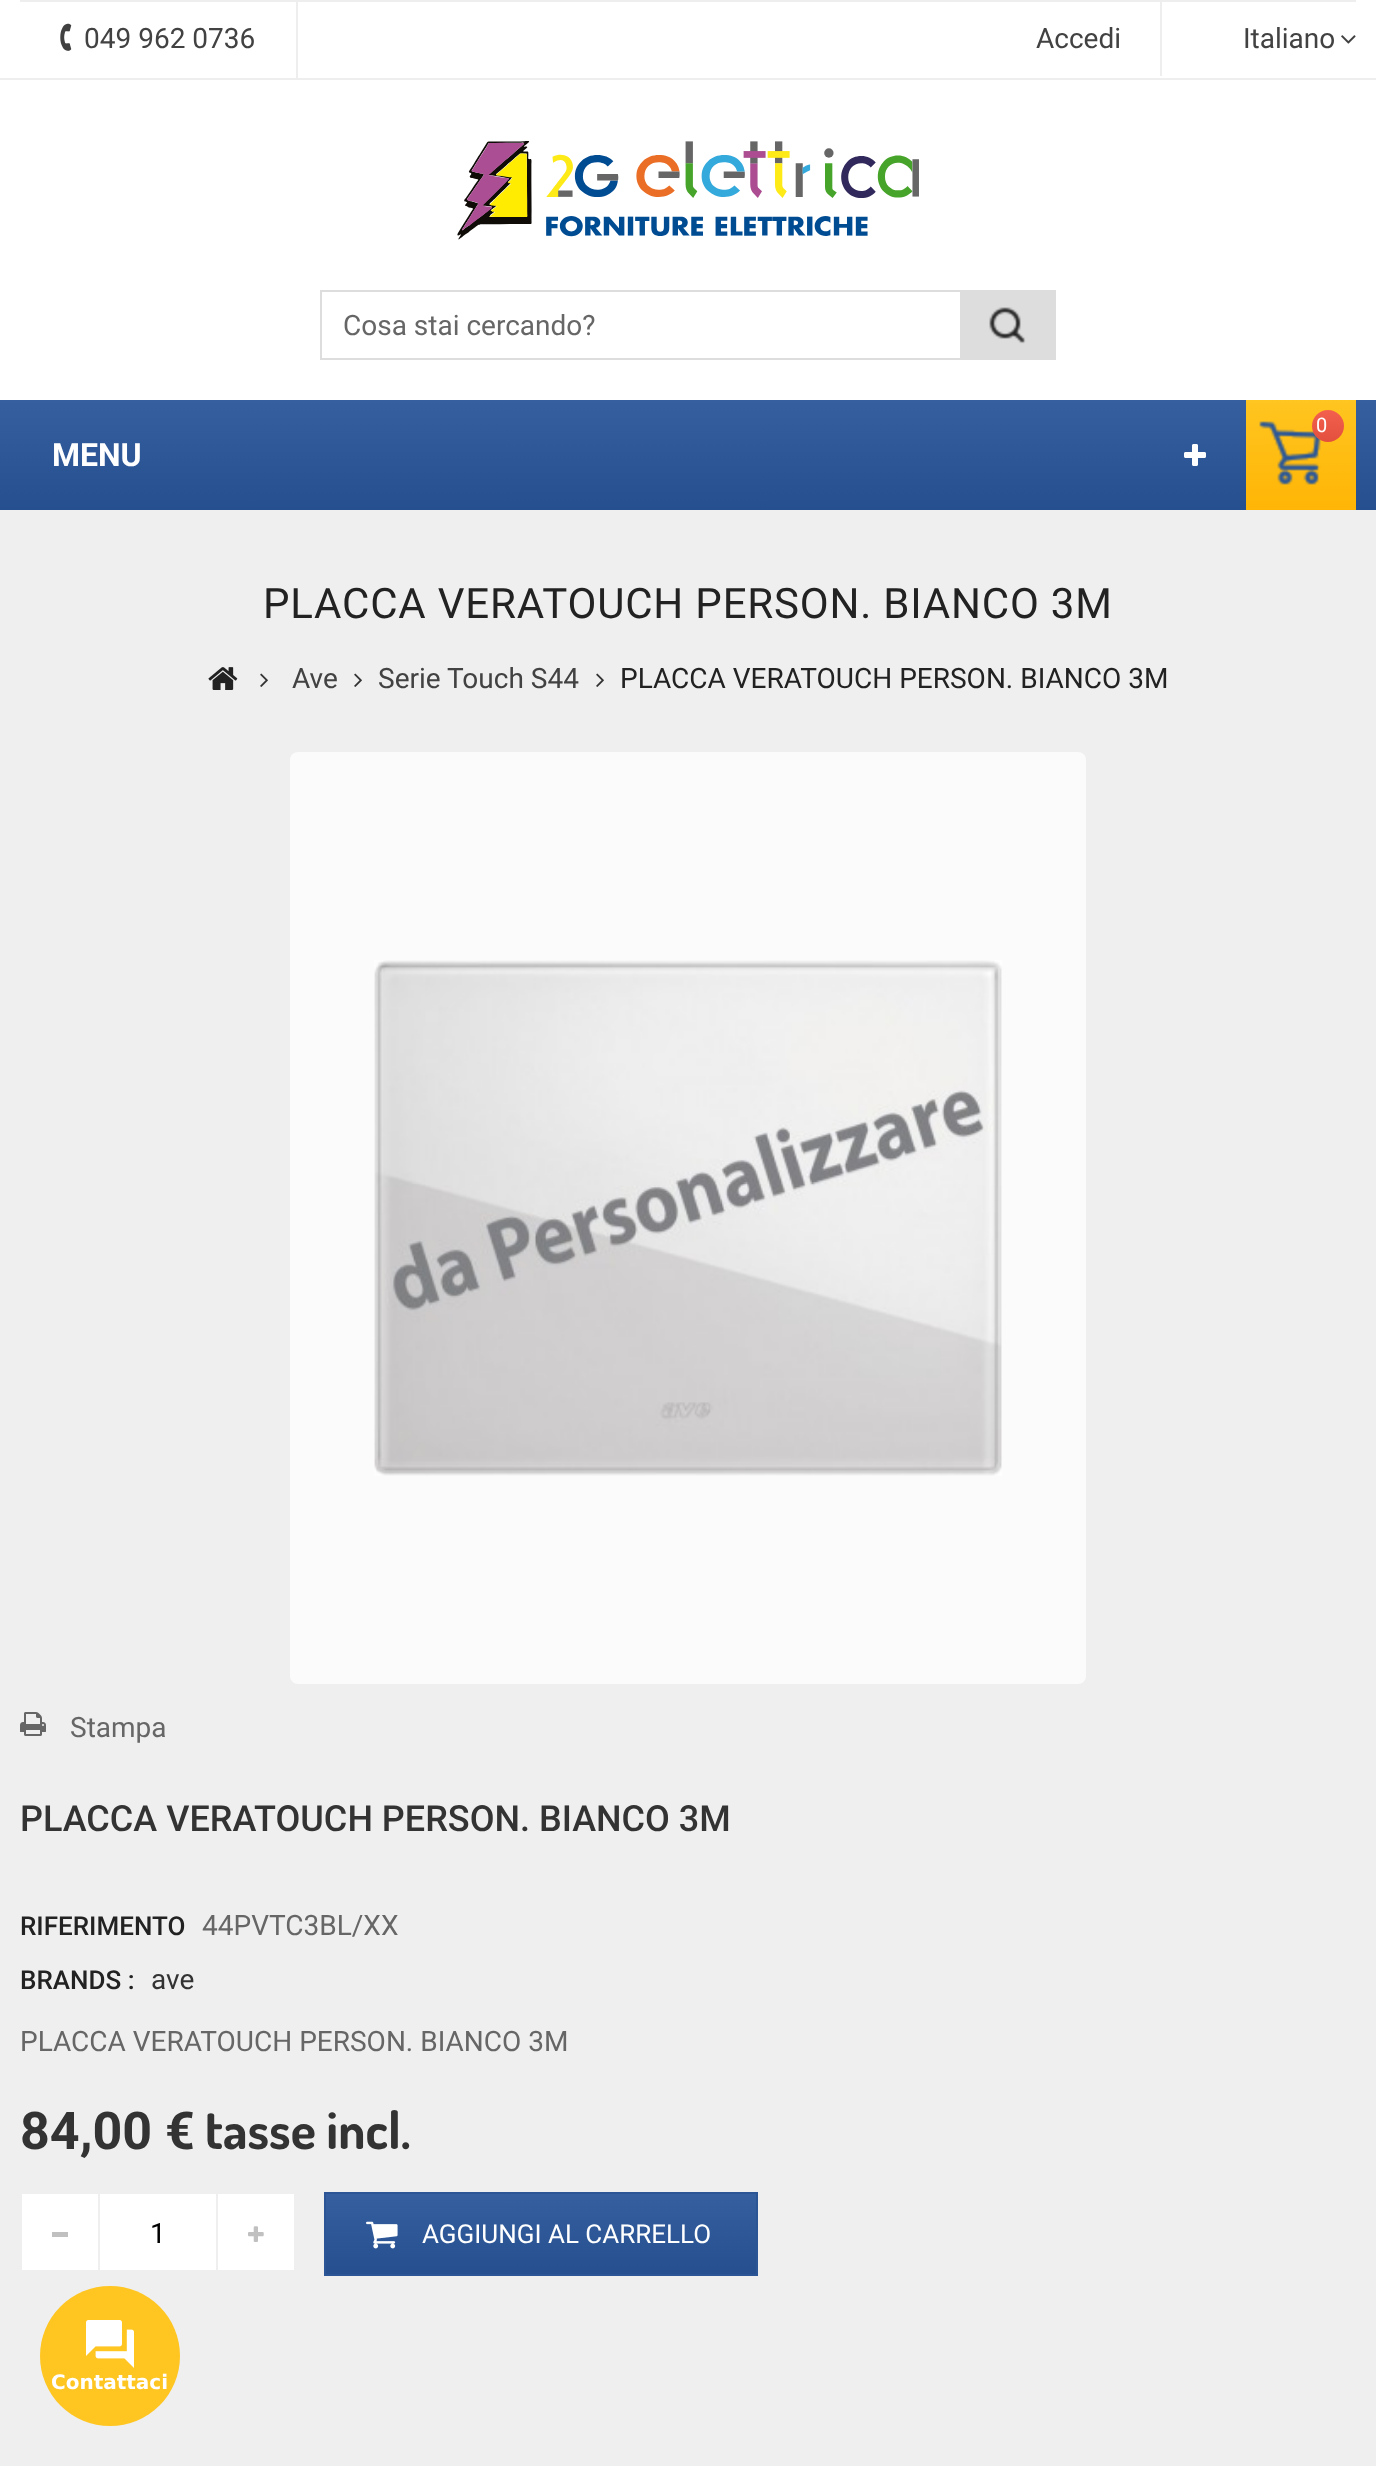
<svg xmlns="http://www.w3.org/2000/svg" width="1376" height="2466">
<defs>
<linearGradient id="g1" gradientUnits="userSpaceOnUse" x1="688" y1="400" x2="688" y2="510"><stop offset="0" stop-color="#355f9f"/><stop offset="1" stop-color="#254f8f"/></linearGradient>
<linearGradient id="g2" gradientUnits="userSpaceOnUse" x1="1301" y1="400" x2="1301" y2="510"><stop offset="0" stop-color="#ffc520"/><stop offset="1" stop-color="#ffb505"/></linearGradient>
<linearGradient id="g3" gradientUnits="userSpaceOnUse" x1="1328" y1="410" x2="1328" y2="442"><stop offset="0" stop-color="#f3604d"/><stop offset="1" stop-color="#e3503d"/></linearGradient>
<linearGradient id="g4" gradientUnits="userSpaceOnUse" x1="541" y1="2194" x2="541" y2="2274"><stop offset="0" stop-color="#355f9f"/><stop offset="1" stop-color="#254f8f"/></linearGradient>
</defs>
<rect width="100%" height="100%" fill="#efefef"/>
<rect width="1376" height="400" fill="#fff"/>
<rect y="78" width="1376" height="2" fill="#eee"/>
<rect x="20" width="1336" height="2" fill="#eee"/>
<rect x="296" y="2" width="2" height="76" fill="#eee"/>
<image x="60" y="23" width="12" height="28" href="media/1.png"/>
<text x="84" y="48" style="font-family:Roboto;font-size:28px;fill:#424242">049 962 0736</text>
<rect x="1160" width="2" height="76" fill="#eee"/>
<text x="1036" y="48" style="font-family:Roboto;font-size:28px;fill:#424242">Accedi</text>
<text x="1243" y="48" style="font-family:Roboto;font-size:28px;fill:#424242">Italiano</text>
<image x="1341" y="35" width="15" height="9" href="media/2.png"/>
<image x="457" y="141" width="462" height="99" href="media/3.png"/>
<rect x="321" y="291" width="734" height="68" fill="none" stroke="#ddd" stroke-width="2"/>
<text x="343" y="335" style="font-family:Roboto;font-size:28px;fill:#666">Cosa stai cercando?</text>
<rect x="960" y="292" width="94" height="66" fill="#ddd"/>
<image x="989" y="307" width="37" height="37" href="media/4.png"/>
<rect y="400" width="1376" height="110" fill="url(#g1)"/>
<rect x="1246" y="400" width="110" height="110" fill="url(#g2)"/>
<image x="1259" y="421" width="62" height="64" href="media/5.png"/>
<circle cx="1328" cy="426" r="16" fill="url(#g3)"/>
<text x="1316" y="432" style="font-family:Roboto;font-size:20px;fill:#fff">0</text>
<text x="52" y="466" style="font-family:Roboto;font-size:32px;font-weight:bold;fill:#fff">MENU</text>
<image x="1184" y="444" width="22" height="22" href="media/6.png"/>
<text x="263" y="618" style="font-family:Roboto;font-size:42px;letter-spacing:0.8px;fill:#222">PLACCA VERATOUCH PERSON. BIANCO 3M</text>
<image x="208" y="667" width="30" height="23" href="media/7.png"/>
<image x="260" y="673" width="8" height="14" href="media/8.png"/>
<text x="292" y="688" style="font-family:Roboto;font-size:28px;fill:#424242">Ave</text>
<image x="354" y="673" width="8" height="14" href="media/8.png"/>
<text x="378" y="688" style="font-family:Roboto;font-size:28px;fill:#424242">Serie Touch S44</text>
<image x="596" y="673" width="8" height="14" href="media/8.png"/>
<text x="620" y="688" style="font-family:Roboto;font-size:28px;fill:#222">PLACCA VERATOUCH PERSON. BIANCO 3M</text>
<rect x="290" y="752" width="796" height="932" rx="8" fill="#fbfbfb"/>
<image x="374" y="960" width="628" height="516" href="media/9.png"/>
<image x="20" y="1712" width="26" height="24" href="media/10.png"/>
<text x="70" y="1737" style="font-family:Roboto;font-size:28px;fill:#666">Stampa</text>
<text x="20" y="1831" style="font-family:Roboto;font-size:36px;font-weight:500;fill:#333">PLACCA VERATOUCH PERSON. BIANCO 3M</text>
<text x="20" y="1935" style="font-family:Roboto;font-size:26px;font-weight:500;fill:#222">RIFERIMENTO</text>
<text x="202" y="1935" style="font-family:Roboto;font-size:28px;fill:#666">44PVTC3BL/XX</text>
<text x="20" y="1989" style="font-family:Roboto;font-size:26px;font-weight:500;fill:#222">BRANDS :</text>
<text x="151" y="1989" style="font-family:Roboto;font-size:28px;fill:#333">ave</text>
<text x="20" y="2051" style="font-family:Roboto;font-size:28px;fill:#666">PLACCA VERATOUCH PERSON. BIANCO 3M</text>
<text x="20" y="2149" style="font-family:Roboto;font-size:52px;font-weight:bold;fill:#333">84,00 €</text>
<text x="205" y="2149" style="font-family:Dosis;font-size:52px;font-weight:bold;fill:#333">tasse incl.</text>
<rect x="22" y="2194" width="76" height="76" fill="#fff"/>
<rect x="52" y="2232" width="16" height="5" fill="#c0c0c0"/>
<rect x="100" y="2194" width="116" height="76" fill="#fff"/>
<text x="150" y="2243" style="font-family:Roboto;font-size:28px;fill:#000">1</text>
<rect x="218" y="2194" width="76" height="76" fill="#fff"/>
<image x="248" y="2226" width="16" height="16" href="media/11.png"/>
<rect x="326" y="2194" width="430" height="80" fill="url(#g4)"/>
<rect x="325" y="2193" width="432" height="82" fill="none" stroke="#2b5595" stroke-width="2"/>
<image x="366" y="2221" width="32" height="28" href="media/12.png"/>
<text x="422" y="2243" style="font-family:Roboto;font-size:26px;fill:#fff">AGGIUNGI AL CARRELLO</text>
<circle cx="110" cy="2356" r="70" fill="#ffc520"/>
<image x="86" y="2320" width="48" height="48" href="media/13.png"/>
<text x="51" y="2389" style="font-family:DejaVu Sans;font-size:20px;font-weight:bold;fill:#fff">Contattaci</text>
</svg>
